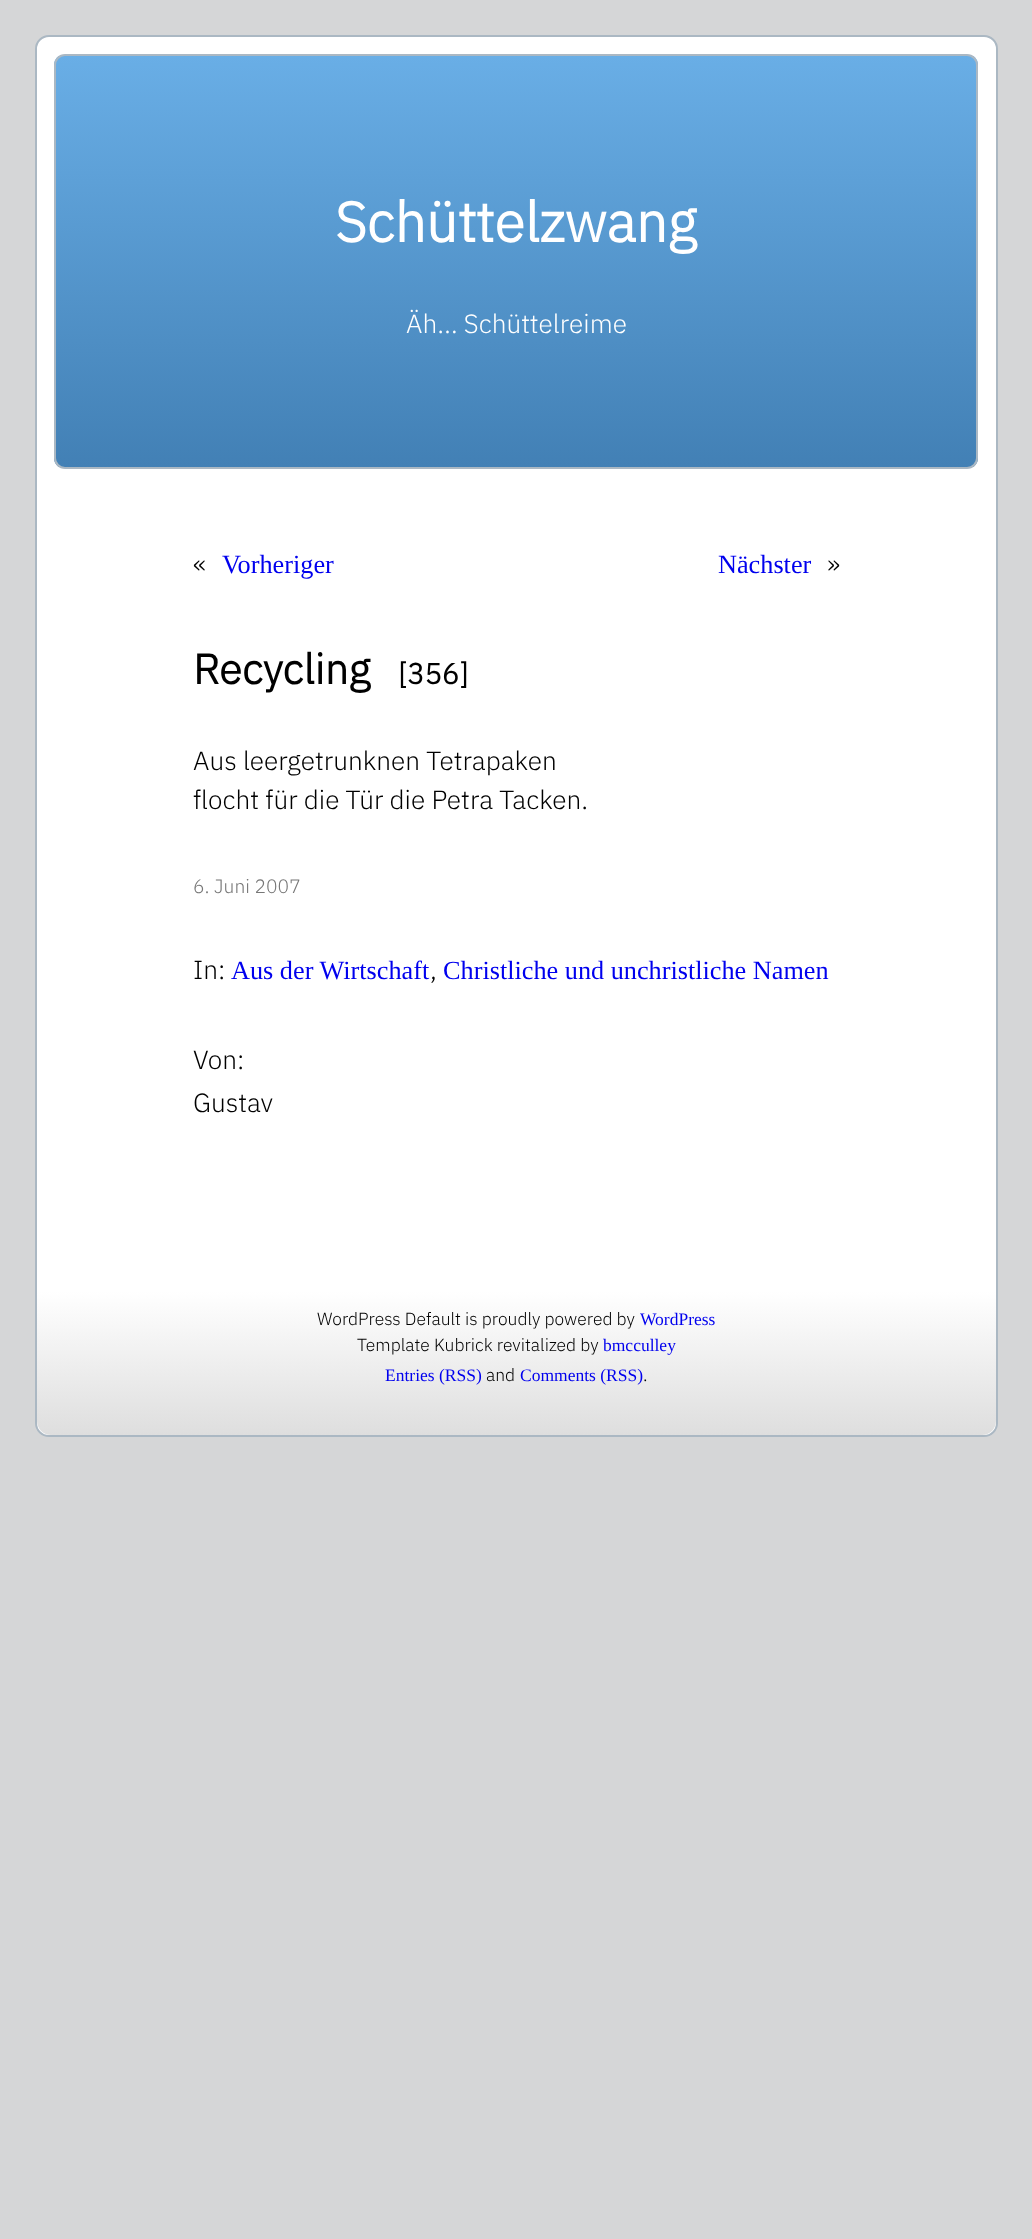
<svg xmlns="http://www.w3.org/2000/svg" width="1032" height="2239">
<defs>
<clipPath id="clip1"><rect x="54" y="54" width="924" height="415" rx="11"/></clipPath>
<linearGradient id="g1" gradientUnits="userSpaceOnUse" x1="516" y1="56" x2="516" y2="467"><stop offset="0" stop-color="#69aee6"/><stop offset="1" stop-color="#4280b5"/></linearGradient>
<linearGradient id="g2" gradientUnits="userSpaceOnUse" x1="516" y1="1236" x2="516" y2="1435"><stop offset="0.28" stop-color="#fff"/><stop offset="1" stop-color="#dedede"/></linearGradient>
</defs>
<rect width="100%" height="100%" fill="#d5d6d7"/>
<rect x="36" y="36" width="961" height="1400" rx="13" fill="#fff" stroke="#abb8c3" stroke-width="2"/>
<g clip-path="url(#clip1)">
<rect x="54" y="56" width="924" height="411" fill="url(#g1)"/>
</g>
<rect x="55" y="55" width="922" height="413" rx="10" fill="none" stroke="#abb8c3" stroke-width="2"/>
<text x="335" y="242" style="font-family:IBM Plex Sans;font-size:56px;font-weight:bold;fill:#fff">Schüttelzwang</text>
<text x="406" y="333" style="font-family:IBM Plex Sans;font-size:26.25px;font-weight:300;fill:#fff">Äh… Schüttelreime</text>
<text x="193" y="573" style="font-family:IBM Plex Sans;font-size:26.25px;font-weight:300;fill:#000">«</text>
<text x="222" y="573" style="font-family:Liberation Serif;font-size:26.25px;fill:#00e">Vorheriger</text>
<text x="718" y="573" style="font-family:Liberation Serif;font-size:26.25px;fill:#00e">Nächster</text>
<text x="827" y="573" style="font-family:IBM Plex Sans;font-size:26.25px;font-weight:300;fill:#000">»</text>
<text x="193" y="684" style="font-family:IBM Plex Sans;font-size:42px;font-weight:bold;fill:#000">Recycling</text>
<text x="398" y="684" style="font-family:IBM Plex Sans;font-size:29px;font-weight:bold;fill:#000">[356]</text>
<text x="193" y="770" style="font-family:IBM Plex Sans;font-size:26.25px;font-weight:300;fill:#000">Aus leergetrunknen Tetrapaken</text>
<text x="193" y="809" style="font-family:IBM Plex Sans;font-size:26.25px;font-weight:300;fill:#000">flocht für die Tür die Petra Tacken.</text>
<text x="193" y="893" style="font-family:IBM Plex Sans;font-size:19.25px;font-weight:300;fill:#777">6. Juni 2007</text>
<text x="193" y="979" style="font-family:IBM Plex Sans;font-size:26.25px;font-weight:300;fill:#000">In:</text>
<text x="231" y="979" style="font-family:Liberation Serif;font-size:26.25px;fill:#00e">Aus der Wirtschaft</text>
<text x="430" y="979" style="font-family:IBM Plex Sans;font-size:26.25px;font-weight:300;fill:#000">,</text>
<text x="443" y="979" style="font-family:Liberation Serif;font-size:26.25px;fill:#00e">Christliche und unchristliche Namen</text>
<text x="193" y="1069" style="font-family:IBM Plex Sans;font-size:26.25px;font-weight:300;fill:#000">Von:</text>
<text x="193" y="1112" style="font-family:IBM Plex Sans;font-size:26.25px;font-weight:300;fill:#000">Gustav</text>
<rect x="37" y="1236" width="959" height="199" rx="14" fill="url(#g2)"/>
<text x="317" y="1325" style="font-family:IBM Plex Sans;font-size:17.5px;font-weight:300;fill:#000">WordPress Default is proudly powered by</text>
<text x="640" y="1325" style="font-family:Liberation Serif;font-size:17.5px;fill:#00e">WordPress</text>
<text x="357" y="1351" style="font-family:IBM Plex Sans;font-size:17.5px;font-weight:300;fill:#000">Template Kubrick revitalized by</text>
<text x="603" y="1351" style="font-family:Liberation Serif;font-size:17.5px;fill:#00e">bmcculley</text>
<text x="385" y="1381" style="font-family:Liberation Serif;font-size:17.5px;fill:#00e">Entries (RSS)</text>
<text x="486" y="1381" style="font-family:IBM Plex Sans;font-size:17.5px;font-weight:300;fill:#000">and</text>
<text x="520" y="1381" style="font-family:Liberation Serif;font-size:17.5px;fill:#00e">Comments (RSS)</text>
<text x="643" y="1381" style="font-family:IBM Plex Sans;font-size:17.5px;font-weight:300;fill:#000">.</text>
</svg>
